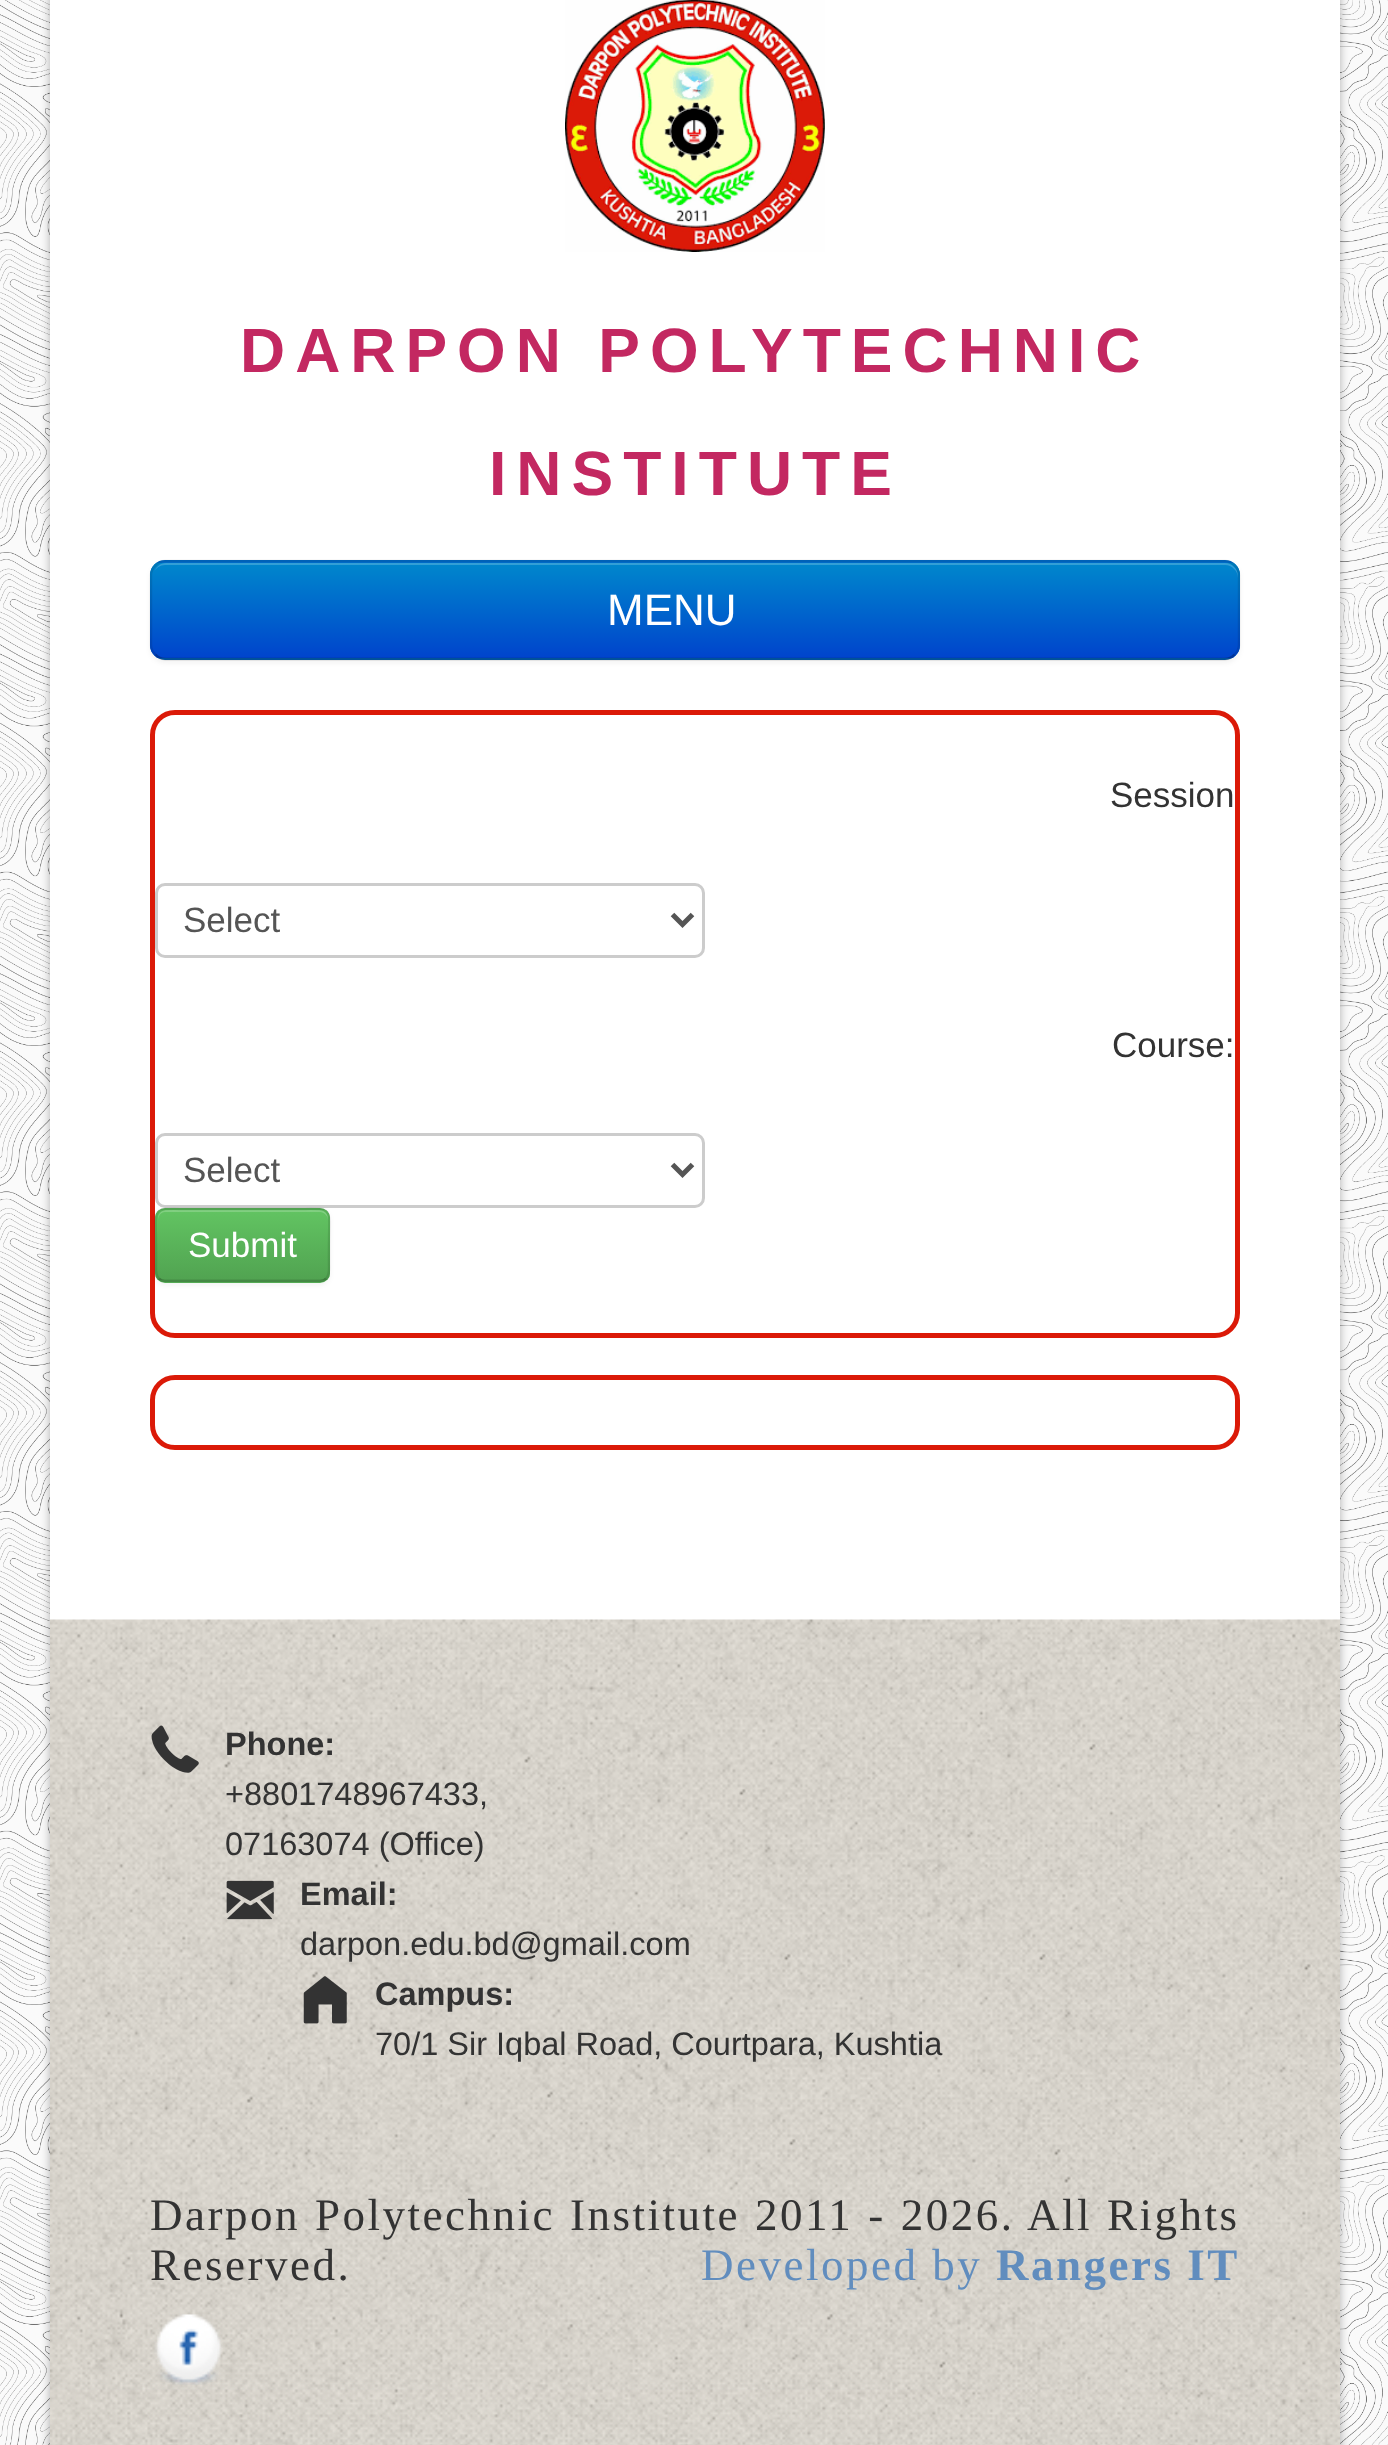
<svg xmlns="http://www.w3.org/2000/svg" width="1388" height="2445">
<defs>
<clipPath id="clip1"><rect x="150" y="560" width="1090" height="100" rx="15"/></clipPath>
<linearGradient id="g1" gradientUnits="userSpaceOnUse" x1="695" y1="562" x2="695" y2="658"><stop offset="0" stop-color="#08c"/><stop offset="1" stop-color="#04c"/></linearGradient>
<clipPath id="clip2"><rect x="155" y="1208" width="175" height="75" rx="10"/></clipPath>
<linearGradient id="g2" gradientUnits="userSpaceOnUse" x1="243" y1="1210" x2="243" y2="1280"><stop offset="0" stop-color="#62c462"/><stop offset="1" stop-color="#51a351"/></linearGradient>
</defs>
<rect width="100%" height="100%" fill="#fff"/>
<image x="0" y="0" width="1388" height="2445" href="media/1.png"/>
<rect x="50" y="-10" width="1290" height="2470" fill="#0000004d" filter="blur(5px)"/>
<rect x="50" width="1290" height="1620" fill="#fff"/>
<image x="565" y="0" width="260" height="252" href="media/2.png"/>
<text x="240" y="372" style="font-family:Liberation Sans;font-size:62.5px;font-weight:bold;letter-spacing:10px;fill:#c32861">DARPON POLYTECHNIC</text>
<text x="489" y="495" style="font-family:Liberation Sans;font-size:62.5px;font-weight:bold;letter-spacing:10px;fill:#c32861">INSTITUTE</text>
<rect x="150" y="563" width="1090" height="100" rx="15" fill="#0000000d" filter="blur(2.5px)"/>
<rect x="150" y="560" width="1090" height="100" rx="15" fill="#006dcc"/>
<g clip-path="url(#clip1)">
<rect x="150" y="563" width="1090" height="95" fill="url(#g1)"/>
</g>
<path d="M165 565h1060c7 0 13 6 13 13v-2c0-7-6-13-13-13h-1059c-6 0-10 4-12 9c2-4 6-7 11-7z" fill="#ffffff33"/>
<path d="M1234.5 654.5c-2.5 3-6 4.5-9.5 4.5h-1060c-3.5 0-7-1.5-9.5-4.5" fill="none" stroke="#00000040" stroke-width="2.5"/>
<path d="M155.5 654.5c-3-2.5-4.5-6-4.5-9.5v-70c0-3.5 1.5-7 4.5-9.5c2.5-3 6-4.5 9.5-4.5h1060c3.5 0 7 1.5 9.5 4.5c3 2.5 4.5 6 4.5 9.5v70c0 3.5-1.5 7-4.5 9.5" fill="none" stroke="#0000001a" stroke-width="2.5"/>
<text x="607" y="625" style="font-family:Liberation Sans;font-size:44px;fill:#fff">MENU</text>
<rect x="152.5" y="712.5" width="1085" height="623" rx="22.5" fill="none" stroke="#db1a08" stroke-width="5"/>
<text x="1110" y="807" style="font-family:Liberation Sans;font-size:35px;fill:#333">Session</text>
<rect x="156.5" y="884.5" width="547" height="72" rx="8.5" fill="none" stroke="#ccc" stroke-width="3"/>
<path d="M672.5 914.5l10 10l10-10" fill="none" stroke="#555" stroke-width="5"/>
<text x="183" y="932" style="font-family:Liberation Sans;font-size:35px;fill:#555">Select</text>
<text x="1112" y="1057" style="font-family:Liberation Sans;font-size:35px;fill:#333">Course:</text>
<rect x="156.5" y="1134.5" width="547" height="72" rx="8.5" fill="none" stroke="#ccc" stroke-width="3"/>
<path d="M672.5 1164.5l10 10l10-10" fill="none" stroke="#555" stroke-width="5"/>
<text x="183" y="1182" style="font-family:Liberation Sans;font-size:35px;fill:#555">Select</text>
<rect x="155" y="1210" width="175" height="75" rx="10" fill="#0000000d" filter="blur(2.5px)"/>
<rect x="155" y="1208" width="175" height="75" rx="10" fill="#5bb75b"/>
<g clip-path="url(#clip2)">
<rect x="155" y="1210" width="175" height="70" fill="url(#g2)"/>
</g>
<path d="M165 1212h155c4 0 8 4 8 8v-2c0-4-4-8-8-8h-154c-4 0-8 4-8 8v2c0-4 3-8 7-8z" fill="#ffffff33"/>
<path d="M326 1278.5c-1.5 2-3.5 2.5-6 2.5h-155c-2.5 0-4.5-.5-6-2.5" fill="none" stroke="#00000040" stroke-width="2.5"/>
<path d="M159 1278.5c-4-3.5-3-10.5-3-15v-18.5c0-40.5-6-36 35-36h103c41 0 35-4.5 35 36v18.5c0 4.5 1 11.5-3 15" fill="none" stroke="#0000001a" stroke-width="2.5"/>
<text x="188" y="1257" style="font-family:Liberation Sans;font-size:35px;fill:#fff">Submit</text>
<rect x="152.5" y="1377.5" width="1085" height="70" rx="22.5" fill="none" stroke="#db1a08" stroke-width="5"/>
<rect x="75" y="2380" width="1240" height="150" rx="75" fill="#00000080" filter="blur(19px)"/>
<image x="50" y="1619" width="1290" height="826" href="media/3.png"/>
<image x="151" y="1725" width="48" height="48" href="media/4.png"/>
<text x="225" y="1755" style="font-family:Liberation Sans;font-size:32.5px;font-weight:bold;fill:#333">Phone:</text>
<text x="225" y="1805" style="font-family:Liberation Sans;font-size:32.5px;fill:#333">+8801748967433,</text>
<text x="225" y="1855" style="font-family:Liberation Sans;font-size:32.5px;fill:#333">07163074 (Office)</text>
<image x="226" y="1880" width="48" height="40" href="media/5.png"/>
<text x="300" y="1905" style="font-family:Liberation Sans;font-size:32.5px;font-weight:bold;fill:#333">Email:</text>
<text x="300" y="1955" style="font-family:Liberation Sans;font-size:32.5px;fill:#333">darpon.edu.bd@gmail.com</text>
<image x="303" y="1976" width="44" height="48" href="media/6.png"/>
<text x="375" y="2005" style="font-family:Liberation Sans;font-size:32.5px;font-weight:bold;fill:#333">Campus:</text>
<text x="375" y="2055" style="font-family:Liberation Sans;font-size:32.5px;fill:#333">70/1 Sir Iqbal Road, Courtpara, Kushtia</text>
<text x="150" y="2230" word-spacing="1.25" style="font-family:Liberation Serif;font-size:45px;letter-spacing:2.5px;fill:#333">Darpon Polytechnic Institute 2011 - 2026. All Rights</text>
<text x="150" y="2280" style="font-family:Liberation Serif;font-size:45px;letter-spacing:2.5px;fill:#333">Reserved.</text>
<text x="701" y="2280" style="font-family:Liberation Serif;font-size:45px;letter-spacing:2.5px;fill:#618dbe">Developed by</text>
<text x="996" y="2280" style="font-family:Liberation Serif;font-size:45px;font-weight:bold;letter-spacing:2.5px;fill:#618dbe">Rangers IT</text>
<image x="154" y="2314" width="69" height="71" href="media/7.png"/>
</svg>
